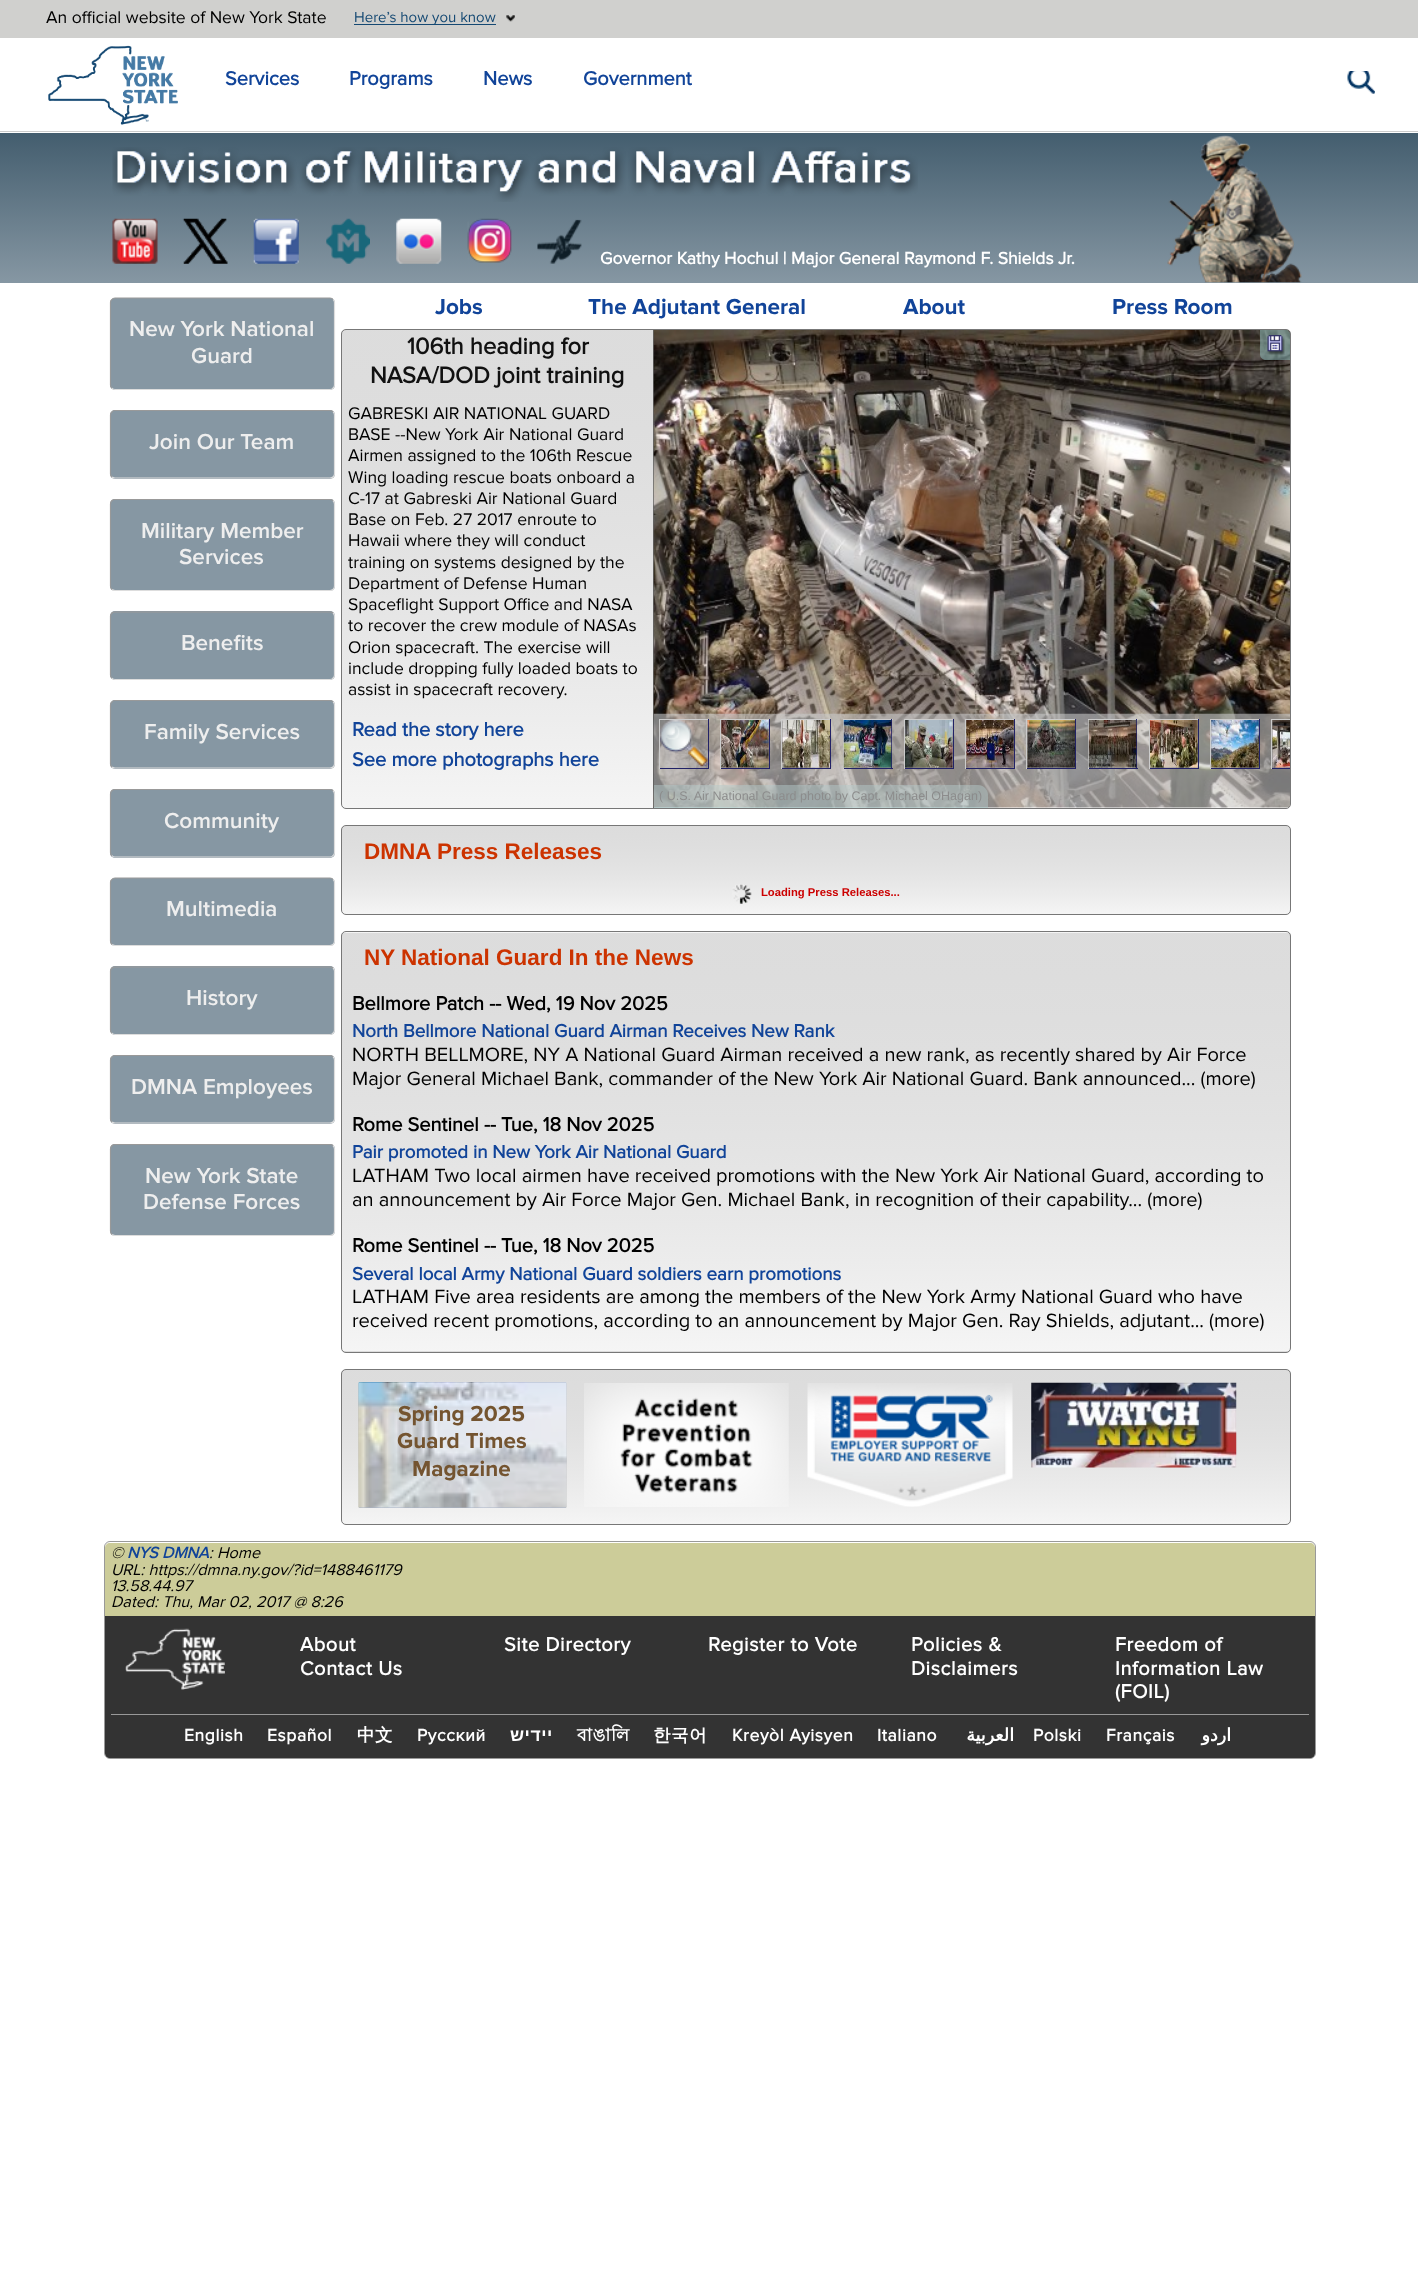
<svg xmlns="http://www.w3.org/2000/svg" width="1418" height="2281">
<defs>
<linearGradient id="g1" gradientUnits="userSpaceOnUse" x1="709" y1="132" x2="709" y2="283"><stop offset="0" stop-color="#435d6e"/><stop offset="1" stop-color="#8697a3"/></linearGradient>
<clipPath id="clip1"><rect x="341" y="329" width="950" height="480" rx="5"/></clipPath>
<linearGradient id="g2" gradientUnits="userSpaceOnUse" x1="816" y1="808" x2="816" y2="330"><stop offset="0" stop-color="#fff" stop-opacity="0.4"/><stop offset="1" stop-color="#969696" stop-opacity="0.2"/></linearGradient>
<clipPath id="clip2"><rect x="341" y="825" width="950" height="90" rx="5"/></clipPath>
<linearGradient id="g3" gradientUnits="userSpaceOnUse" x1="816" y1="914" x2="816" y2="826"><stop offset="0" stop-color="#fff" stop-opacity="0.4"/><stop offset="1" stop-color="#969696" stop-opacity="0.2"/></linearGradient>
<clipPath id="clip3"><rect x="341" y="931" width="950" height="422" rx="5"/></clipPath>
<linearGradient id="g4" gradientUnits="userSpaceOnUse" x1="816" y1="933" x2="816" y2="514"><stop offset="0" stop-color="#fff" stop-opacity="0.4"/><stop offset="1" stop-color="#969696" stop-opacity="0.2"/></linearGradient>
<linearGradient id="g5" gradientUnits="userSpaceOnUse" x1="816" y1="1351" x2="816" y2="933"><stop offset="0" stop-color="#fff" stop-opacity="0.4"/><stop offset="1" stop-color="#969696" stop-opacity="0.2"/></linearGradient>
<linearGradient id="g6" gradientUnits="userSpaceOnUse" x1="816" y1="1770" x2="816" y2="1351"><stop offset="0" stop-color="#fff" stop-opacity="0.4"/><stop offset="1" stop-color="#969696" stop-opacity="0.2"/></linearGradient>
<clipPath id="clip4"><rect x="341" y="289" width="950" height="1236" rx="4"/></clipPath>
<clipPath id="clip5"><rect x="341" y="1369" width="950" height="156" rx="5"/></clipPath>
<linearGradient id="g7" gradientUnits="userSpaceOnUse" x1="816" y1="1524" x2="816" y2="1370"><stop offset="0" stop-color="#fff" stop-opacity="0.4"/><stop offset="1" stop-color="#969696" stop-opacity="0.2"/></linearGradient>
</defs>
<rect width="100%" height="100%" fill="#fff"/>
<rect y="131" width="1418" height="1" fill="#ccc"/>
<rect width="1418" height="38" fill="#d0d0ce"/>
<text x="46" y="23" style="font-family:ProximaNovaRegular;font-size:17.5px;fill:#000">An official website of New York State</text>
<rect x="354" y="24" width="142" height="1" fill="#154973"/>
<text x="354" y="22" style="font-family:ProximaNovaRegular;font-size:15px;fill:#154973">Here’s how you know</text>
<image x="506" y="15" width="9" height="7" href="media/1.png"/>
<image x="48" y="45" width="130" height="80" href="media/2.png"/>
<text x="225" y="85" style="font-family:ProximaNovaRegular;font-size:20px;font-weight:bold;fill:#149">Services</text>
<text x="349" y="85" style="font-family:ProximaNovaRegular;font-size:20px;font-weight:bold;fill:#149">Programs</text>
<text x="483" y="85" style="font-family:ProximaNovaRegular;font-size:20px;font-weight:bold;fill:#149">News</text>
<text x="583" y="85" style="font-family:ProximaNovaRegular;font-size:20px;font-weight:bold;fill:#149">Government</text>
<image x="1347" y="71" width="28" height="23" href="media/3.png"/>
<rect y="133" width="1418" height="150" fill="url(#g1)"/>
<image x="112" y="147" width="806" height="55" href="media/4.png"/>
<image x="1167" y="135" width="135" height="148" href="media/5.png"/>
<image x="112" y="218" width="46" height="46" href="media/6.png"/>
<image x="182" y="218" width="46" height="46" href="media/7.png"/>
<image x="253" y="218" width="46" height="46" href="media/8.png"/>
<image x="326" y="218" width="44" height="46" href="media/9.png"/>
<image x="396" y="218" width="46" height="46" href="media/10.png"/>
<image x="467" y="218" width="45" height="45" href="media/11.png"/>
<image x="537" y="219" width="45" height="45" href="media/12.png"/>
<text x="600" y="264" style="font-family:ProximaNovaRegular;font-size:17.5px;font-weight:bold;fill:#fff">Governor Kathy Hochul | Major General Raymond F. Shields Jr.</text>
<rect x="110" y="298" width="225" height="92" rx="5" fill="#8697a3"/>
<path d="M333 299.5c1 .5 1.5 2 1.5 3v82.5c0 1-.5 2.5-1.5 3c-.5 1-2 1.5-3 1.5h-215c-1 0-2.5-.5-3-1.5" fill="none" stroke="#ddd" stroke-width="1.2"/>
<path d="M112 388c-1-.5-1.5-2-1.5-3v-82.5c0-1 .5-2.5 1.5-3c.5-1 2-1.5 3-1.5h215c1 0 2.5 .5 3 1.5" fill="none" stroke="#999" stroke-width="1.2"/>
<text x="129" y="336" style="font-family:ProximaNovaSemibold;font-size:22.5px;font-weight:600;fill:#eee">New York National</text>
<text x="191" y="363" style="font-family:ProximaNovaSemibold;font-size:22.5px;font-weight:600;fill:#eee">Guard</text>
<rect x="110" y="410" width="225" height="69" rx="5" fill="#8697a3"/>
<path d="M333 412c1 .5 1.5 2 1.5 3v59c0 1-.5 2-1.5 3c-.5 .5-2 1-3 1h-215c-1 0-2.5-.5-3-1" fill="none" stroke="#ddd" stroke-width="1.2"/>
<path d="M112 477c-1-1-1.5-2-1.5-3v-59c0-1 .5-2.5 1.5-3c.5-1 2-1.5 3-1.5h215c1 0 2.5 .5 3 1.5" fill="none" stroke="#999" stroke-width="1.2"/>
<text x="149" y="449" style="font-family:ProximaNovaSemibold;font-size:22.5px;font-weight:600;fill:#eee">Join Our Team</text>
<rect x="110" y="499" width="225" height="92" rx="5" fill="#8697a3"/>
<path d="M333 500.5c1 1 1.5 2 1.5 3.5v82c0 1.5-.5 2.5-1.5 3.5c-.5 .5-2 1-3 1h-215c-1 0-2.5-.5-3-1" fill="none" stroke="#ddd" stroke-width="1.2"/>
<path d="M112 589.5c-1-1-1.5-2-1.5-3.5v-82c0-1.5 .5-2.5 1.5-3.5c.5-.5 2-1 3-1h215c1 0 2.5 .5 3 1" fill="none" stroke="#999" stroke-width="1.2"/>
<text x="141" y="538" style="font-family:ProximaNovaSemibold;font-size:22.5px;font-weight:600;fill:#eee">Military Member</text>
<text x="179" y="564" style="font-family:ProximaNovaSemibold;font-size:22.5px;font-weight:600;fill:#eee">Services</text>
<rect x="110" y="611" width="225" height="69" rx="5" fill="#8697a3"/>
<path d="M333 613c1 1 1.5 2 1.5 3v59c0 1-.5 2.5-1.5 3c-.5 1-2 1.5-3 1.5h-215c-1 0-2.5-.5-3-1.5" fill="none" stroke="#ddd" stroke-width="1.2"/>
<path d="M112 678c-1-.5-1.5-2-1.5-3v-59c0-1 .5-2 1.5-3c.5-.5 2-1 3-1h215c1 0 2.5 .5 3 1" fill="none" stroke="#999" stroke-width="1.2"/>
<text x="181" y="650" style="font-family:ProximaNovaSemibold;font-size:22.5px;font-weight:600;fill:#eee">Benefits</text>
<rect x="110" y="700" width="225" height="69" rx="5" fill="#8697a3"/>
<path d="M333 702c1 .5 1.5 2 1.5 3v59c0 1-.5 2-1.5 3c-.5 .5-2 1-3 1h-215c-1 0-2.5-.5-3-1" fill="none" stroke="#ddd" stroke-width="1.2"/>
<path d="M112 767c-1-1-1.5-2-1.5-3v-59c0-1 .5-2.5 1.5-3c.5-1 2-1.5 3-1.5h215c1 0 2.5 .5 3 1.5" fill="none" stroke="#999" stroke-width="1.2"/>
<text x="144" y="739" style="font-family:ProximaNovaSemibold;font-size:22.5px;font-weight:600;fill:#eee">Family Services</text>
<rect x="110" y="789" width="225" height="69" rx="5" fill="#8697a3"/>
<path d="M333 790.5c1 1 1.5 2 1.5 3.5v58.5c0 1-.5 2.5-1.5 3c-.5 1-2 1.5-3 1.5h-215c-1 0-2.5-.5-3-1.5" fill="none" stroke="#ddd" stroke-width="1.2"/>
<path d="M112 855.5c-1-.5-1.5-2-1.5-3v-58.5c0-1.5 .5-2.5 1.5-3.5c.5-.5 2-1 3-1h215c1 0 2.5 .5 3 1" fill="none" stroke="#999" stroke-width="1.2"/>
<text x="164" y="828" style="font-family:ProximaNovaSemibold;font-size:22.5px;font-weight:600;fill:#eee">Community</text>
<rect x="110" y="878" width="225" height="68" rx="5" fill="#8697a3"/>
<path d="M333 879.5c1 .5 1.5 2 1.5 3v58.5c0 1.5-.5 2.5-1.5 3.5c-.5 .5-2 1-3 1h-215c-1 0-2.5-.5-3-1" fill="none" stroke="#ddd" stroke-width="1.2"/>
<path d="M112 944.5c-1-1-1.5-2-1.5-3.5v-58.5c0-1 .5-2.5 1.5-3c.5-1 2-1.5 3-1.5h215c1 0 2.5 .5 3 1.5" fill="none" stroke="#999" stroke-width="1.2"/>
<text x="166" y="916" style="font-family:ProximaNovaSemibold;font-size:22.5px;font-weight:600;fill:#eee">Multimedia</text>
<rect x="110" y="966" width="225" height="69" rx="5" fill="#8697a3"/>
<path d="M333 968c1 1 1.5 2 1.5 3v59c0 1-.5 2.5-1.5 3c-.5 1-2 1.5-3 1.5h-215c-1 0-2.5-.5-3-1.5" fill="none" stroke="#ddd" stroke-width="1.2"/>
<path d="M112 1033c-1-.5-1.5-2-1.5-3v-59c0-1 .5-2 1.5-3c.5-.5 2-1 3-1h215c1 0 2.5 .5 3 1" fill="none" stroke="#999" stroke-width="1.2"/>
<text x="186" y="1005" style="font-family:ProximaNovaSemibold;font-size:22.5px;font-weight:600;fill:#eee">History</text>
<rect x="110" y="1055" width="225" height="69" rx="5" fill="#8697a3"/>
<path d="M333 1057c1 .5 1.5 2 1.5 3v59c0 1-.5 2-1.5 3c-.5 .5-2 1-3 1h-215c-1 0-2.5-.5-3-1" fill="none" stroke="#ddd" stroke-width="1.2"/>
<path d="M112 1122c-1-1-1.5-2-1.5-3v-59c0-1 .5-2.5 1.5-3c.5-1 2-1.5 3-1.5h215c1 0 2.5 .5 3 1.5" fill="none" stroke="#999" stroke-width="1.2"/>
<text x="131" y="1094" style="font-family:ProximaNovaSemibold;font-size:22.5px;font-weight:600;fill:#eee">DMNA Employees</text>
<rect x="110" y="1144" width="225" height="92" rx="5" fill="#8697a3"/>
<path d="M333 1145.5c1 1 1.5 2 1.5 3.5v82c0 1.5-.5 2.5-1.5 3.5c-.5 .5-2 1-3 1h-215c-1 0-2.5-.5-3-1" fill="none" stroke="#ddd" stroke-width="1.2"/>
<path d="M112 1234.5c-1-1-1.5-2-1.5-3.5v-82c0-1.5 .5-2.5 1.5-3.5c.5-.5 2-1 3-1h215c1 0 2.5 .5 3 1" fill="none" stroke="#999" stroke-width="1.2"/>
<text x="145" y="1183" style="font-family:ProximaNovaSemibold;font-size:22.5px;font-weight:600;fill:#eee">New York State</text>
<text x="143" y="1209" style="font-family:ProximaNovaSemibold;font-size:22.5px;font-weight:600;fill:#eee">Defense Forces</text>
<text x="435" y="314" style="font-family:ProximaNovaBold;font-size:22.5px;font-weight:bold;fill:#149">Jobs</text>
<text x="588" y="314" style="font-family:ProximaNovaBold;font-size:22.5px;font-weight:bold;fill:#149">The Adjutant General</text>
<text x="903" y="314" style="font-family:ProximaNovaBold;font-size:22.5px;font-weight:bold;fill:#149">About</text>
<text x="1112" y="314" style="font-family:ProximaNovaBold;font-size:22.5px;font-weight:bold;fill:#149">Press Room</text>
<rect x="341" y="329" width="950" height="480" rx="5" fill="#eee"/>
<g clip-path="url(#clip1)">
<rect x="341" y="330" width="950" height="478" fill="url(#g2)"/>
</g>
<rect x="341.5" y="329.5" width="949" height="479" rx="4.5" fill="none" stroke="#777"/>
<text x="407" y="354" style="font-family:ProximaNovaRegular;font-size:23.75px;font-weight:bold;fill:#111">106th heading for</text>
<text x="370" y="383" style="font-family:ProximaNovaRegular;font-size:23.75px;font-weight:bold;fill:#111">NASA/DOD joint training</text>
<text x="348" y="419" style="font-family:ProximaNovaRegular;font-size:17.5px;fill:#000">GABRESKI AIR NATIONAL GUARD</text>
<text x="348" y="440" style="font-family:ProximaNovaRegular;font-size:17.5px;fill:#000">BASE --New York Air National Guard</text>
<text x="348" y="461" style="font-family:ProximaNovaRegular;font-size:17.5px;fill:#000">Airmen assigned to the 106th Rescue</text>
<text x="348" y="483" style="font-family:ProximaNovaRegular;font-size:17.5px;fill:#000">Wing loading rescue boats onboard a</text>
<text x="348" y="504" style="font-family:ProximaNovaRegular;font-size:17.5px;fill:#000">C-17 at Gabreski Air National Guard</text>
<text x="348" y="525" style="font-family:ProximaNovaRegular;font-size:17.5px;fill:#000">Base on Feb. 27 2017 enroute to</text>
<text x="348" y="546" style="font-family:ProximaNovaRegular;font-size:17.5px;fill:#000">Hawaii where they will conduct</text>
<text x="348" y="568" style="font-family:ProximaNovaRegular;font-size:17.5px;fill:#000">training on systems designed by the</text>
<text x="348" y="589" style="font-family:ProximaNovaRegular;font-size:17.5px;fill:#000">Department of Defense Human</text>
<text x="348" y="610" style="font-family:ProximaNovaRegular;font-size:17.5px;fill:#000">Spaceflight Support Office and NASA</text>
<text x="348" y="631" style="font-family:ProximaNovaRegular;font-size:17.5px;fill:#000">to recover the crew module of NASAs</text>
<text x="348" y="653" style="font-family:ProximaNovaRegular;font-size:17.5px;fill:#000">Orion spacecraft. The exercise will</text>
<text x="348" y="674" style="font-family:ProximaNovaRegular;font-size:17.5px;fill:#000">include dropping fully loaded boats to</text>
<text x="348" y="695" style="font-family:ProximaNovaRegular;font-size:17.5px;fill:#000">assist in spacecraft recovery.</text>
<text x="352" y="736" style="font-family:ProximaNovaRegular;font-size:20px;font-weight:bold;fill:#149">Read the story here</text>
<text x="352" y="766" style="font-family:ProximaNovaRegular;font-size:20px;font-weight:bold;fill:#149">See more photographs here</text>
<rect x="653" y="330" width="1" height="478" fill="#666"/>
<image x="653" y="330" width="637" height="478" href="media/13.png"/>
<path d="M1260 330h26c2 0 4 2 4 4v26h-24c-3.5 0-6-2.5-6-6z" fill="#96c8c880"/>
<image x="1267" y="335" width="18" height="20" href="media/14.png"/>
<path d="M654 785h324c5.5 0 10 4.5 10 10v13h-334z" fill="#96c8c880"/>
<text x="659" y="800" style="font-family:Liberation Sans;font-size:12.5px;fill:#333">( U.S. Air National Guard photo by Capt. Michael OHagan)</text>
<image x="653" y="713" width="637" height="95" href="media/15.png"/>
<rect x="659" y="719" width="50" height="1" fill="#ccc"/>
<rect x="708" y="719" width="1" height="50" fill="#226"/>
<rect x="659" y="768" width="50" height="1" fill="#226"/>
<rect x="659" y="719" width="1" height="50" fill="#ccc"/>
<image x="660" y="720" width="48" height="47" href="media/16.png"/>
<rect x="720" y="719" width="50" height="1" fill="#ccc"/>
<rect x="769" y="719" width="1" height="50" fill="#226"/>
<rect x="720" y="768" width="50" height="1" fill="#226"/>
<rect x="720" y="719" width="1" height="50" fill="#ccc"/>
<image x="721" y="720" width="48" height="48" href="media/17.png"/>
<rect x="781" y="719" width="50" height="1" fill="#ccc"/>
<rect x="830" y="719" width="1" height="50" fill="#226"/>
<rect x="781" y="768" width="50" height="1" fill="#226"/>
<rect x="781" y="719" width="1" height="50" fill="#ccc"/>
<image x="782" y="720" width="48" height="48" href="media/18.png"/>
<rect x="843" y="719" width="50" height="1" fill="#ccc"/>
<rect x="891" y="719" width="1" height="50" fill="#226"/>
<rect x="843" y="768" width="50" height="1" fill="#226"/>
<rect x="843" y="719" width="1" height="50" fill="#ccc"/>
<image x="843" y="720" width="49" height="48" href="media/19.png"/>
<rect x="904" y="719" width="50" height="1" fill="#ccc"/>
<rect x="953" y="719" width="1" height="50" fill="#226"/>
<rect x="904" y="768" width="50" height="1" fill="#226"/>
<rect x="904" y="719" width="1" height="50" fill="#ccc"/>
<image x="905" y="720" width="48" height="48" href="media/20.png"/>
<rect x="965" y="719" width="50" height="1" fill="#ccc"/>
<rect x="1014" y="719" width="1" height="50" fill="#226"/>
<rect x="965" y="768" width="50" height="1" fill="#226"/>
<rect x="965" y="719" width="1" height="50" fill="#ccc"/>
<image x="966" y="720" width="48" height="48" href="media/21.png"/>
<rect x="1026" y="719" width="50" height="1" fill="#ccc"/>
<rect x="1075" y="719" width="1" height="50" fill="#226"/>
<rect x="1026" y="768" width="50" height="1" fill="#226"/>
<rect x="1026" y="719" width="1" height="50" fill="#ccc"/>
<image x="1027" y="720" width="48" height="48" href="media/22.png"/>
<rect x="1088" y="719" width="50" height="1" fill="#ccc"/>
<rect x="1136" y="719" width="1" height="50" fill="#226"/>
<rect x="1088" y="768" width="50" height="1" fill="#226"/>
<rect x="1088" y="719" width="1" height="50" fill="#ccc"/>
<image x="1088" y="720" width="49" height="48" href="media/23.png"/>
<rect x="1149" y="719" width="50" height="1" fill="#ccc"/>
<rect x="1198" y="719" width="1" height="50" fill="#226"/>
<rect x="1149" y="768" width="50" height="1" fill="#226"/>
<rect x="1149" y="719" width="1" height="50" fill="#ccc"/>
<image x="1150" y="720" width="48" height="48" href="media/24.png"/>
<rect x="1210" y="719" width="50" height="1" fill="#ccc"/>
<rect x="1259" y="719" width="1" height="50" fill="#226"/>
<rect x="1210" y="768" width="50" height="1" fill="#226"/>
<rect x="1210" y="719" width="1" height="50" fill="#ccc"/>
<image x="1211" y="720" width="48" height="48" href="media/25.png"/>
<rect x="1271" y="719" width="19" height="1" fill="#ccc"/>
<rect x="1271" y="768" width="19" height="1" fill="#226"/>
<rect x="1271" y="719" width="1" height="50" fill="#ccc"/>
<image x="1272" y="720" width="18" height="48" href="media/26.png"/>
<rect x="341" y="825" width="950" height="90" rx="5" fill="#eee"/>
<g clip-path="url(#clip2)">
<rect x="341" y="826" width="950" height="88" fill="url(#g3)"/>
</g>
<rect x="341.5" y="825.5" width="949" height="89" rx="4.5" fill="none" stroke="#777"/>
<text x="364" y="859" style="font-family:Liberation Sans;font-size:22.5px;font-weight:bold;fill:#c30">DMNA Press Releases</text>
<image x="732" y="884" width="20" height="20" href="media/27.png"/>
<text x="761" y="896" style="font-family:Liberation Sans;font-size:11.25px;font-weight:bold;fill:#c00">Loading Press Releases...</text>
<rect x="341" y="931" width="950" height="422" rx="5" fill="#eee"/>
<g clip-path="url(#clip3)">
<rect x="341" y="931" width="950" height="2" fill="url(#g4)"/>
<rect x="341" y="933" width="950" height="418" fill="url(#g5)"/>
<rect x="341" y="1351" width="950" height="2" fill="url(#g6)"/>
</g>
<rect x="341.5" y="931.5" width="949" height="421" rx="4.5" fill="none" stroke="#777"/>
<text x="364" y="965" style="font-family:Liberation Sans;font-size:22.5px;font-weight:bold;fill:#c30">NY National Guard In the News</text>
<text x="352" y="1010" style="font-family:ProximaNovaRegular;font-size:20px;font-weight:bold;fill:#000">Bellmore Patch -- Wed, 19 Nov 2025</text>
<text x="352" y="1037" style="font-family:ProximaNovaRegular;font-size:18.75px;font-weight:bold;fill:#149">North Bellmore National Guard Airman Receives New Rank</text>
<text x="352" y="1061" style="font-family:ProximaNovaRegular;font-size:20px;fill:#000">NORTH BELLMORE, NY A National Guard Airman received a new rank, as recently shared by Air Force</text>
<text x="352" y="1085" style="font-family:ProximaNovaRegular;font-size:20px;fill:#000">Major General Michael Bank, commander of the New York Air National Guard. Bank announced... (more)</text>
<text x="352" y="1131" style="font-family:ProximaNovaRegular;font-size:20px;font-weight:bold;fill:#000">Rome Sentinel -- Tue, 18 Nov 2025</text>
<text x="352" y="1158" style="font-family:ProximaNovaRegular;font-size:18.75px;font-weight:bold;fill:#149">Pair promoted in New York Air National Guard</text>
<text x="352" y="1182" style="font-family:ProximaNovaRegular;font-size:20px;fill:#000">LATHAM Two local airmen have received promotions with the New York Air National Guard, according to</text>
<text x="352" y="1206" style="font-family:ProximaNovaRegular;font-size:20px;fill:#000">an announcement by Air Force Major Gen. Michael Bank, in recognition of their capability... (more)</text>
<text x="352" y="1252" style="font-family:ProximaNovaRegular;font-size:20px;font-weight:bold;fill:#000">Rome Sentinel -- Tue, 18 Nov 2025</text>
<text x="352" y="1280" style="font-family:ProximaNovaRegular;font-size:18.75px;font-weight:bold;fill:#149">Several local Army National Guard soldiers earn promotions</text>
<text x="352" y="1303" style="font-family:ProximaNovaRegular;font-size:20px;fill:#000">LATHAM Five area residents are among the members of the New York Army National Guard who have</text>
<text x="352" y="1327" style="font-family:ProximaNovaRegular;font-size:20px;fill:#000">received recent promotions, according to an announcement by Major Gen. Ray Shields, adjutant... (more)</text>
<g clip-path="url(#clip4)">
<rect x="341" y="1369" width="950" height="156" rx="5" fill="#eee"/>
</g>
<g clip-path="url(#clip5)">
<rect x="341" y="1370" width="950" height="154" fill="url(#g7)"/>
</g>
<rect x="341.5" y="1369.5" width="949" height="155" rx="4.5" fill="none" stroke="#777"/>
<rect x="359" y="1507" width="207" height="1" fill="#2a4477"/>
<image x="358" y="1382" width="209" height="126" href="media/28.png"/>
<rect x="359" y="1383" width="207" height="125" fill="#ffffff99"/>
<text x="398" y="1421" style="font-family:ProximaNovaBold;font-size:22.5px;font-weight:bold;fill:#745430">Spring 2025</text>
<text x="397" y="1448" style="font-family:ProximaNovaBold;font-size:22.5px;font-weight:bold;fill:#745430">Guard Times</text>
<text x="412" y="1476" style="font-family:ProximaNovaBold;font-size:22.5px;font-weight:bold;fill:#745430">Magazine</text>
<image x="584" y="1383" width="205" height="124" href="media/29.png"/>
<image x="807" y="1383" width="206" height="124" href="media/30.png"/>
<image x="1031" y="1382" width="206" height="86" href="media/31.png"/>
<rect x="104.5" y="1541.5" width="1211" height="217" rx="5.5" fill="none" stroke="#999"/>
<path d="M110 1543h1200c3 0 5 2 5 5v68h-1210v-68c0-3 2-5 5-5z" fill="#cc9"/>
<text x="111" y="1558" style="font-family:ProximaNovaRegular;font-size:16.25px;font-style:italic;fill:#000">©</text>
<text x="127" y="1558" style="font-family:ProximaNovaRegular;font-size:16.25px;font-weight:bold;font-style:italic;fill:#149">NYS DMNA</text>
<text x="209" y="1558" style="font-family:ProximaNovaRegular;font-size:16.25px;font-style:italic;fill:#000">: Home</text>
<text x="111" y="1575" style="font-family:ProximaNovaRegular;font-size:16.25px;font-style:italic;fill:#000">URL: https://dmna.ny.gov/?id=1488461179</text>
<text x="111" y="1591" style="font-family:ProximaNovaRegular;font-size:16.25px;font-style:italic;fill:#000">13.58.44.97</text>
<text x="111" y="1607" style="font-family:ProximaNovaRegular;font-size:16.25px;font-style:italic;fill:#000">Dated: Thu, Mar 02, 2017 @ 8:26</text>
<path d="M105 1616h1210v137c0 3-2 5-5 5h-1200c-3 0-5-2-5-5z" fill="#333"/>
<image x="125" y="1628" width="100" height="62" href="media/32.png"/>
<text x="300" y="1651" style="font-family:ProximaNovaRegular;font-size:20px;font-weight:bold;letter-spacing:0.6px;fill:#fff">About</text>
<text x="300" y="1675" style="font-family:ProximaNovaRegular;font-size:20px;font-weight:bold;letter-spacing:0.6px;fill:#fff">Contact Us</text>
<text x="504" y="1651" style="font-family:ProximaNovaRegular;font-size:20px;font-weight:bold;letter-spacing:0.6px;fill:#fff">Site Directory</text>
<text x="708" y="1651" style="font-family:ProximaNovaRegular;font-size:20px;font-weight:bold;letter-spacing:0.6px;fill:#fff">Register to Vote</text>
<text x="911" y="1651" style="font-family:ProximaNovaRegular;font-size:20px;font-weight:bold;letter-spacing:0.6px;fill:#fff">Policies &amp;</text>
<text x="911" y="1675" style="font-family:ProximaNovaRegular;font-size:20px;font-weight:bold;letter-spacing:0.6px;fill:#fff">Disclaimers</text>
<text x="1115" y="1651" style="font-family:ProximaNovaRegular;font-size:20px;font-weight:bold;letter-spacing:0.6px;fill:#fff">Freedom of</text>
<text x="1115" y="1675" style="font-family:ProximaNovaRegular;font-size:20px;font-weight:bold;letter-spacing:0.6px;fill:#fff">Information Law</text>
<text x="1115" y="1698" style="font-family:ProximaNovaRegular;font-size:20px;font-weight:bold;letter-spacing:0.6px;fill:#fff">(FOIL)</text>
<rect x="111" y="1714" width="1198" height="1" fill="#999"/>
<text x="184" y="1741" style="font-family:ProximaNovaRegular;font-size:17.5px;font-weight:bold;letter-spacing:0.6px;fill:#fff">English</text>
<text x="267" y="1741" style="font-family:ProximaNovaRegular;font-size:17.5px;font-weight:bold;letter-spacing:0.6px;fill:#fff">Español</text>
<text x="357" y="1741" style="font-family:WenQuanYi Zen Hei;font-size:17.5px;font-weight:bold;letter-spacing:0.6px;fill:#fff">中文</text>
<text x="417" y="1741" style="font-family:ProximaNovaRegular;font-size:17.5px;font-weight:bold;letter-spacing:0.6px;fill:#fff">Русский</text>
<text x="553" y="1741" style="font-family:Liberation Sans;font-size:17.5px;font-weight:bold;letter-spacing:0.6px;direction:rtl;fill:#fff">יידיש</text>
<text x="577" y="1741" style="font-family:Lohit Bengali;font-size:17.5px;font-weight:bold;letter-spacing:0.6px;fill:#fff">বাঙালি</text>
<text x="653" y="1741" style="font-family:WenQuanYi Zen Hei;font-size:17.5px;font-weight:bold;letter-spacing:0.6px;fill:#fff">한국어</text>
<text x="732" y="1741" style="font-family:ProximaNovaRegular;font-size:17.5px;font-weight:bold;letter-spacing:0.6px;fill:#fff">Kreyòl Ayisyen</text>
<text x="877" y="1741" style="font-family:ProximaNovaRegular;font-size:17.5px;font-weight:bold;letter-spacing:0.6px;fill:#fff">Italiano</text>
<text x="1014" y="1741" style="font-family:DejaVu Sans;font-size:17.5px;font-weight:bold;letter-spacing:0.6px;direction:rtl;fill:#fff">العربية</text>
<text x="1033" y="1741" style="font-family:ProximaNovaRegular;font-size:17.5px;font-weight:bold;letter-spacing:0.6px;fill:#fff">Polski</text>
<text x="1106" y="1741" style="font-family:ProximaNovaRegular;font-size:17.5px;font-weight:bold;letter-spacing:0.6px;fill:#fff">Français</text>
<text x="1231" y="1741" style="font-family:DejaVu Sans;font-size:17.5px;font-weight:bold;letter-spacing:0.6px;direction:rtl;fill:#fff">اردو</text>
</svg>
